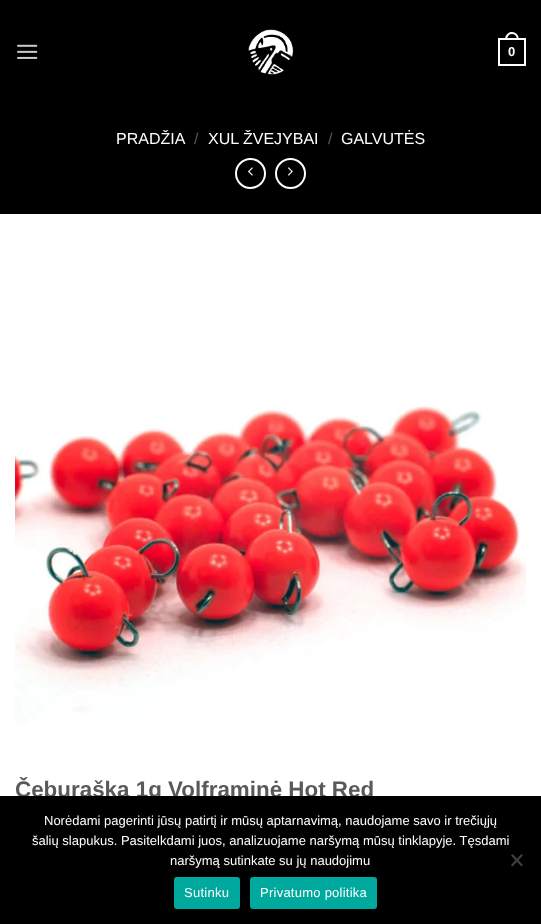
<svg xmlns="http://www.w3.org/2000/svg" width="541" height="924">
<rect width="100%" height="100%" fill="#fff"/>
<rect width="541" height="214" fill="#000"/>
<image x="17" y="44" width="21" height="15" href="media/1.png"/>
<image x="248" y="29" width="46" height="46" href="media/2.png"/>
<rect x="499" y="39" width="26" height="26" fill="none" stroke="#fff" stroke-width="2"/>
<path d="M512 32c4.5 0 7 4 7 8h-14c0-4 2.5-8 7-8zm0 2c3.5 0 5 3 5 6h-10c0-3 1.5-6 5-6z" fill="#fff" fill-rule="evenodd"/>
<text x="508" y="56" style="font-family:Liberation Sans;font-size:13px;font-weight:bold;fill:#fff">0</text>
<text x="116" y="144" style="font-family:Liberation Sans;font-size:16px;fill:#fff">PRADŽIA</text>
<text x="194" y="144" style="font-family:Liberation Sans;font-size:16px;fill:#595959">/</text>
<text x="208" y="144" style="font-family:Liberation Sans;font-size:16px;fill:#fff">XUL ŽVEJYBAI</text>
<text x="328" y="144" style="font-family:Liberation Sans;font-size:16px;fill:#595959">/</text>
<text x="341" y="144" style="font-family:Liberation Sans;font-size:16px;fill:#fff">GALVUTĖS</text>
<circle cx="250.5" cy="173.5" r="14.5" fill="none" stroke="#fff" stroke-width="2"/>
<image x="248" y="167" width="5" height="9" href="media/3.png"/>
<circle cx="290.5" cy="173.5" r="14.5" fill="none" stroke="#fff" stroke-width="2"/>
<image x="288" y="167" width="5" height="9" href="media/4.png"/>
<image x="15" y="404" width="511" height="320" href="media/5.png"/>
<text x="15" y="797" style="font-family:Liberation Sans;font-size:22.4px;font-weight:bold;fill:#595959">Čeburaška 1g Volframinė Hot Red</text>
<rect y="796" width="541" height="128" fill="#000"/>
<text x="44" y="825" style="font-family:Liberation Sans;font-size:13px;fill:#fff">Norėdami pagerinti jūsų patirtį ir mūsų aptarnavimą, naudojame savo ir trečiųjų</text>
<text x="32" y="845" style="font-family:Liberation Sans;font-size:13px;fill:#fff">šalių slapukus. Pasitelkdami juos, analizuojame naršymą mūsų tinklapyje. Tęsdami</text>
<text x="170" y="865" style="font-family:Liberation Sans;font-size:13px;fill:#fff">naršymą sutinkate su jų naudojimu</text>
<path d="M521.5 854l1.5 1.5l-10.5 11l-1.5-1.5z" fill="#404040"/>
<path d="M511 855.5l1.5-1.5l10.5 11l-1.5 1.5z" fill="#404040"/>
<rect x="174" y="877" width="66" height="32" rx="3" fill="#00a99d"/>
<text x="184" y="897" style="font-family:Liberation Sans;font-size:13px;letter-spacing:0.25px;fill:#fff">Sutinku</text>
<rect x="250" y="877" width="127" height="32" rx="3" fill="#00a99d"/>
<text x="260" y="897" style="font-family:Liberation Sans;font-size:13px;letter-spacing:0.25px;fill:#fff">Privatumo politika</text>
</svg>
